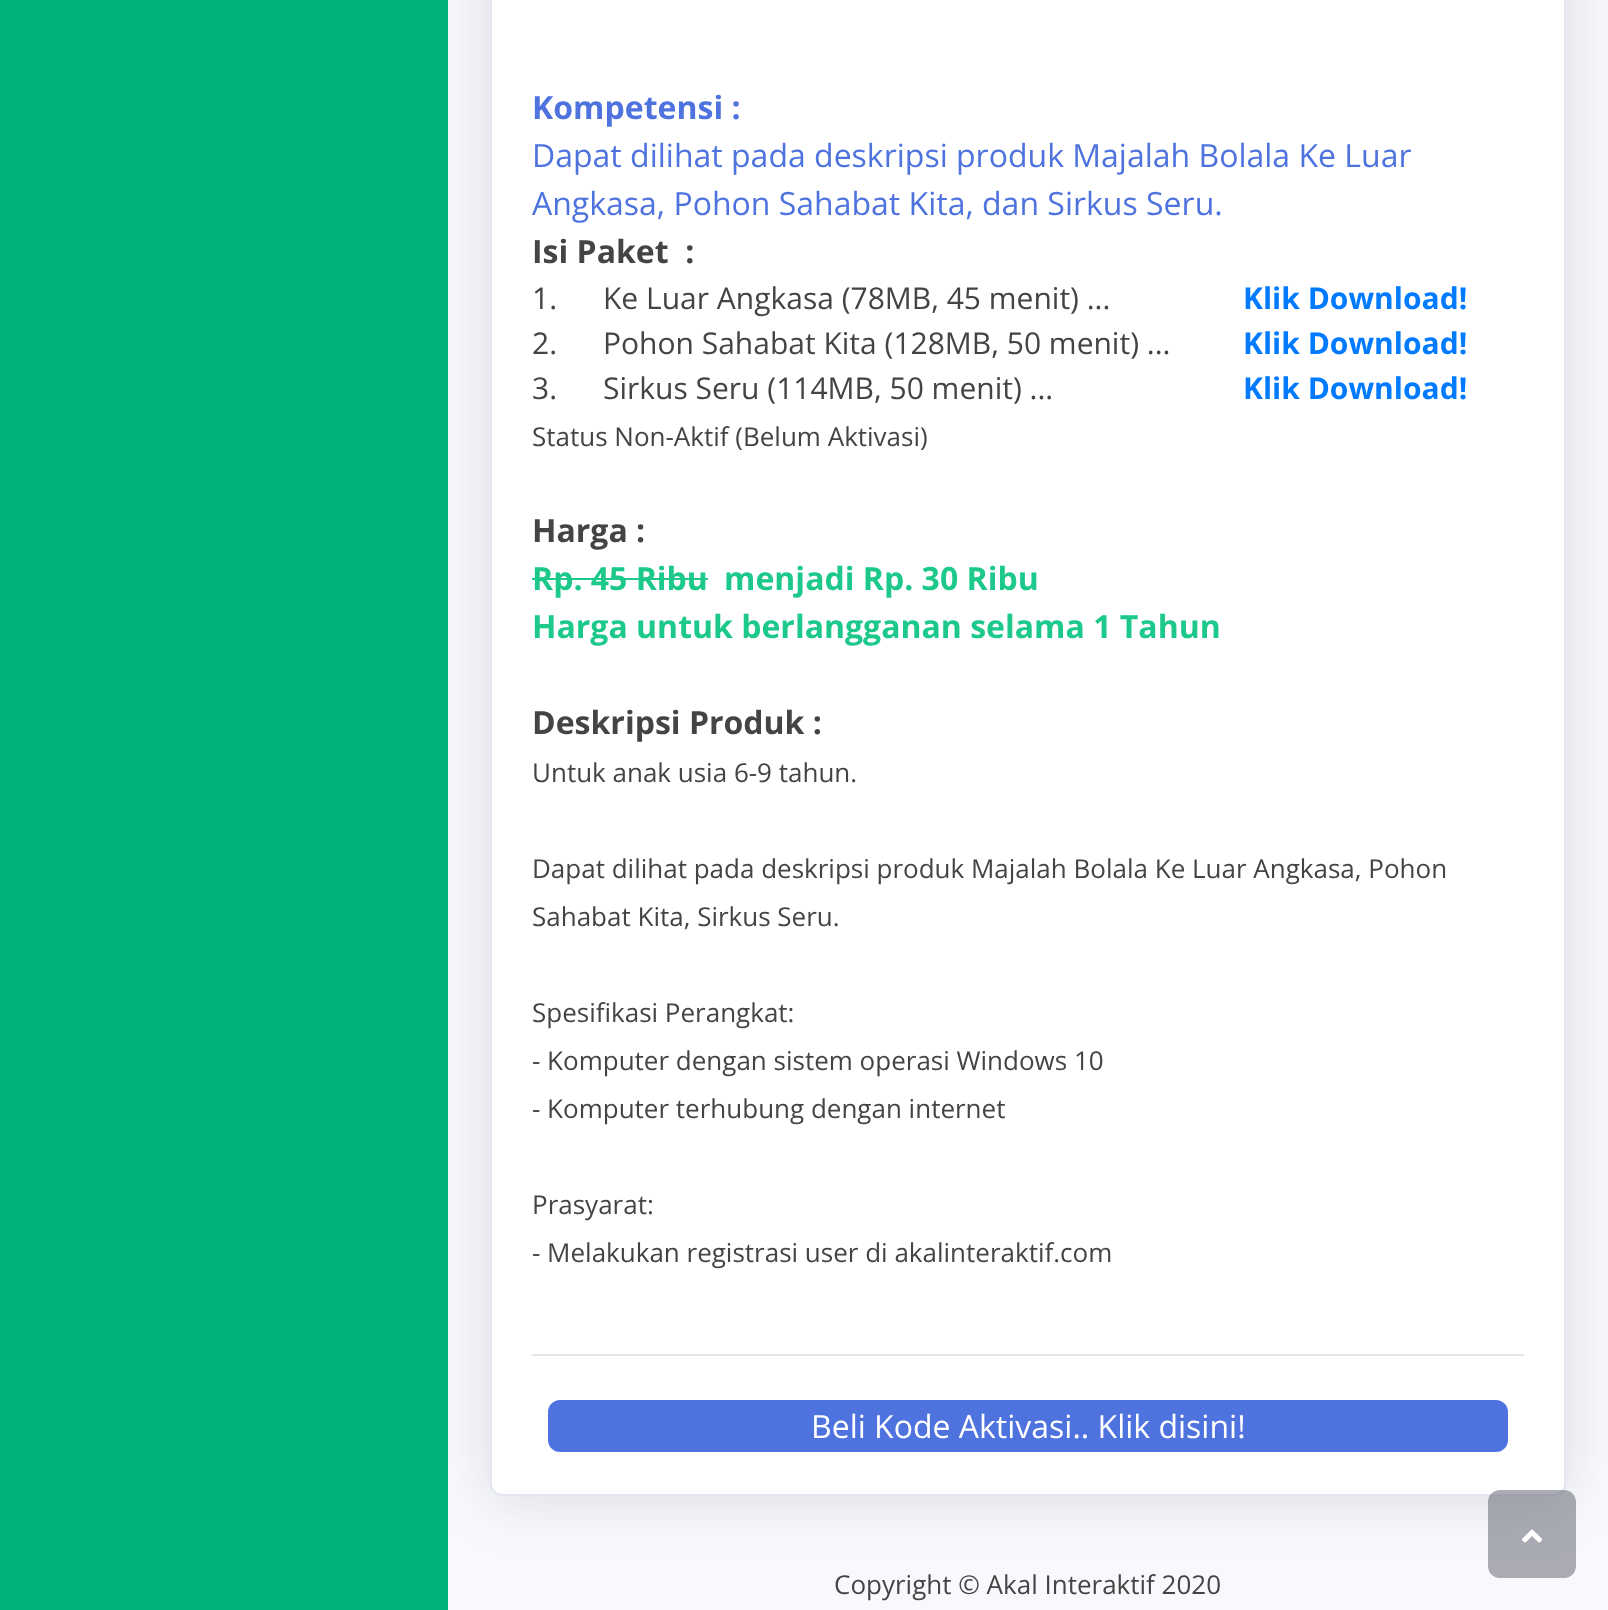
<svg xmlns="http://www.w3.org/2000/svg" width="1608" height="1610">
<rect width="100%" height="100%" fill="#00b17b"/>
<rect x="448" width="1160" height="1610" fill="#f8f9fc"/>
<rect x="490" y="-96" width="1076" height="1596" rx="12" fill="#3a3b4526" filter="blur(28px)"/>
<rect x="491" y="-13" width="1074" height="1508" rx="11" fill="#fff" stroke="#e3e6f0" stroke-width="2"/>
<text x="532" y="119" style="font-family:Open Sans;font-size:32px;font-weight:bold;fill:#4e73df">Kompetensi :</text>
<text x="532" y="167" style="font-family:Open Sans;font-size:32px;fill:#4e73df">Dapat dilihat pada deskripsi produk Majalah Bolala Ke Luar</text>
<text x="532" y="215" style="font-family:Open Sans;font-size:32px;fill:#4e73df">Angkasa, Pohon Sahabat Kita, dan Sirkus Seru.</text>
<text x="532" y="263" style="font-family:Open Sans;font-size:32px;font-weight:bold;fill:#444" xml:space="preserve">Isi Paket  :</text>
<text x="532" y="309" style="font-family:Open Sans;font-size:30px;fill:#444">1.</text>
<text x="603" y="309" style="font-family:Open Sans;font-size:30px;fill:#444">Ke Luar Angkasa (78MB, 45 menit) ...</text>
<text x="1243" y="309" style="font-family:Open Sans;font-size:30px;font-weight:bold;fill:#007bff">Klik Download!</text>
<text x="532" y="354" style="font-family:Open Sans;font-size:30px;fill:#444">2.</text>
<text x="603" y="354" style="font-family:Open Sans;font-size:30px;fill:#444">Pohon Sahabat Kita (128MB, 50 menit) ...</text>
<text x="1243" y="354" style="font-family:Open Sans;font-size:30px;font-weight:bold;fill:#007bff">Klik Download!</text>
<text x="532" y="399" style="font-family:Open Sans;font-size:30px;fill:#444">3.</text>
<text x="603" y="399" style="font-family:Open Sans;font-size:30px;fill:#444">Sirkus Seru (114MB, 50 menit) ...</text>
<text x="1243" y="399" style="font-family:Open Sans;font-size:30px;font-weight:bold;fill:#007bff">Klik Download!</text>
<text x="532" y="446" style="font-family:Open Sans;font-size:26px;fill:#444">Status Non-Aktif (Belum Aktivasi)</text>
<text x="532" y="542" style="font-family:Open Sans;font-size:32px;font-weight:bold;fill:#444">Harga :</text>
<text x="532" y="590" style="font-family:Open Sans;font-size:32px;font-weight:bold;fill:#1cc88a">Rp. 45 Ribu</text>
<rect x="532" y="578" width="176" height="2" fill="#1cc88a"/>
<text x="724" y="590" style="font-family:Open Sans;font-size:32px;font-weight:bold;fill:#1cc88a">menjadi Rp. 30 Ribu</text>
<text x="532" y="638" style="font-family:Open Sans;font-size:32px;font-weight:bold;fill:#1cc88a">Harga untuk berlangganan selama 1 Tahun</text>
<text x="532" y="734" style="font-family:Open Sans;font-size:32px;font-weight:bold;fill:#444">Deskripsi Produk :</text>
<text x="532" y="782" style="font-family:Open Sans;font-size:26px;fill:#444">Untuk anak usia 6-9 tahun.</text>
<text x="532" y="878" style="font-family:Open Sans;font-size:26px;fill:#444">Dapat dilihat pada deskripsi produk Majalah Bolala Ke Luar Angkasa, Pohon</text>
<text x="532" y="926" style="font-family:Open Sans;font-size:26px;fill:#444">Sahabat Kita, Sirkus Seru.</text>
<text x="532" y="1022" style="font-family:Open Sans;font-size:26px;fill:#444">Spesifikasi Perangkat:</text>
<text x="532" y="1070" style="font-family:Open Sans;font-size:26px;fill:#444">- Komputer dengan sistem operasi Windows 10</text>
<text x="532" y="1118" style="font-family:Open Sans;font-size:26px;fill:#444">- Komputer terhubung dengan internet</text>
<text x="532" y="1214" style="font-family:Open Sans;font-size:26px;fill:#444">Prasyarat:</text>
<text x="532" y="1262" style="font-family:Open Sans;font-size:26px;fill:#444">- Melakukan registrasi user di akalinteraktif.com</text>
<rect x="532" y="1354" width="992" height="2" fill="#e6e6e6"/>
<rect x="549" y="1401" width="958" height="50" rx="11" fill="#4e73df" stroke="#4e73df" stroke-width="2"/>
<text x="811" y="1438" style="font-family:Open Sans;font-size:32px;fill:#fff">Beli Kode Aktivasi.. Klik disini!</text>
<rect x="1488" y="1490" width="88" height="88" rx="12" fill="#5a5c6980"/>
<image x="1522" y="1529" width="20" height="14" href="media/1.png"/>
<text x="834" y="1594" style="font-family:Open Sans;font-size:26px;fill:#444">Copyright © Akal Interaktif 2020</text>
</svg>
